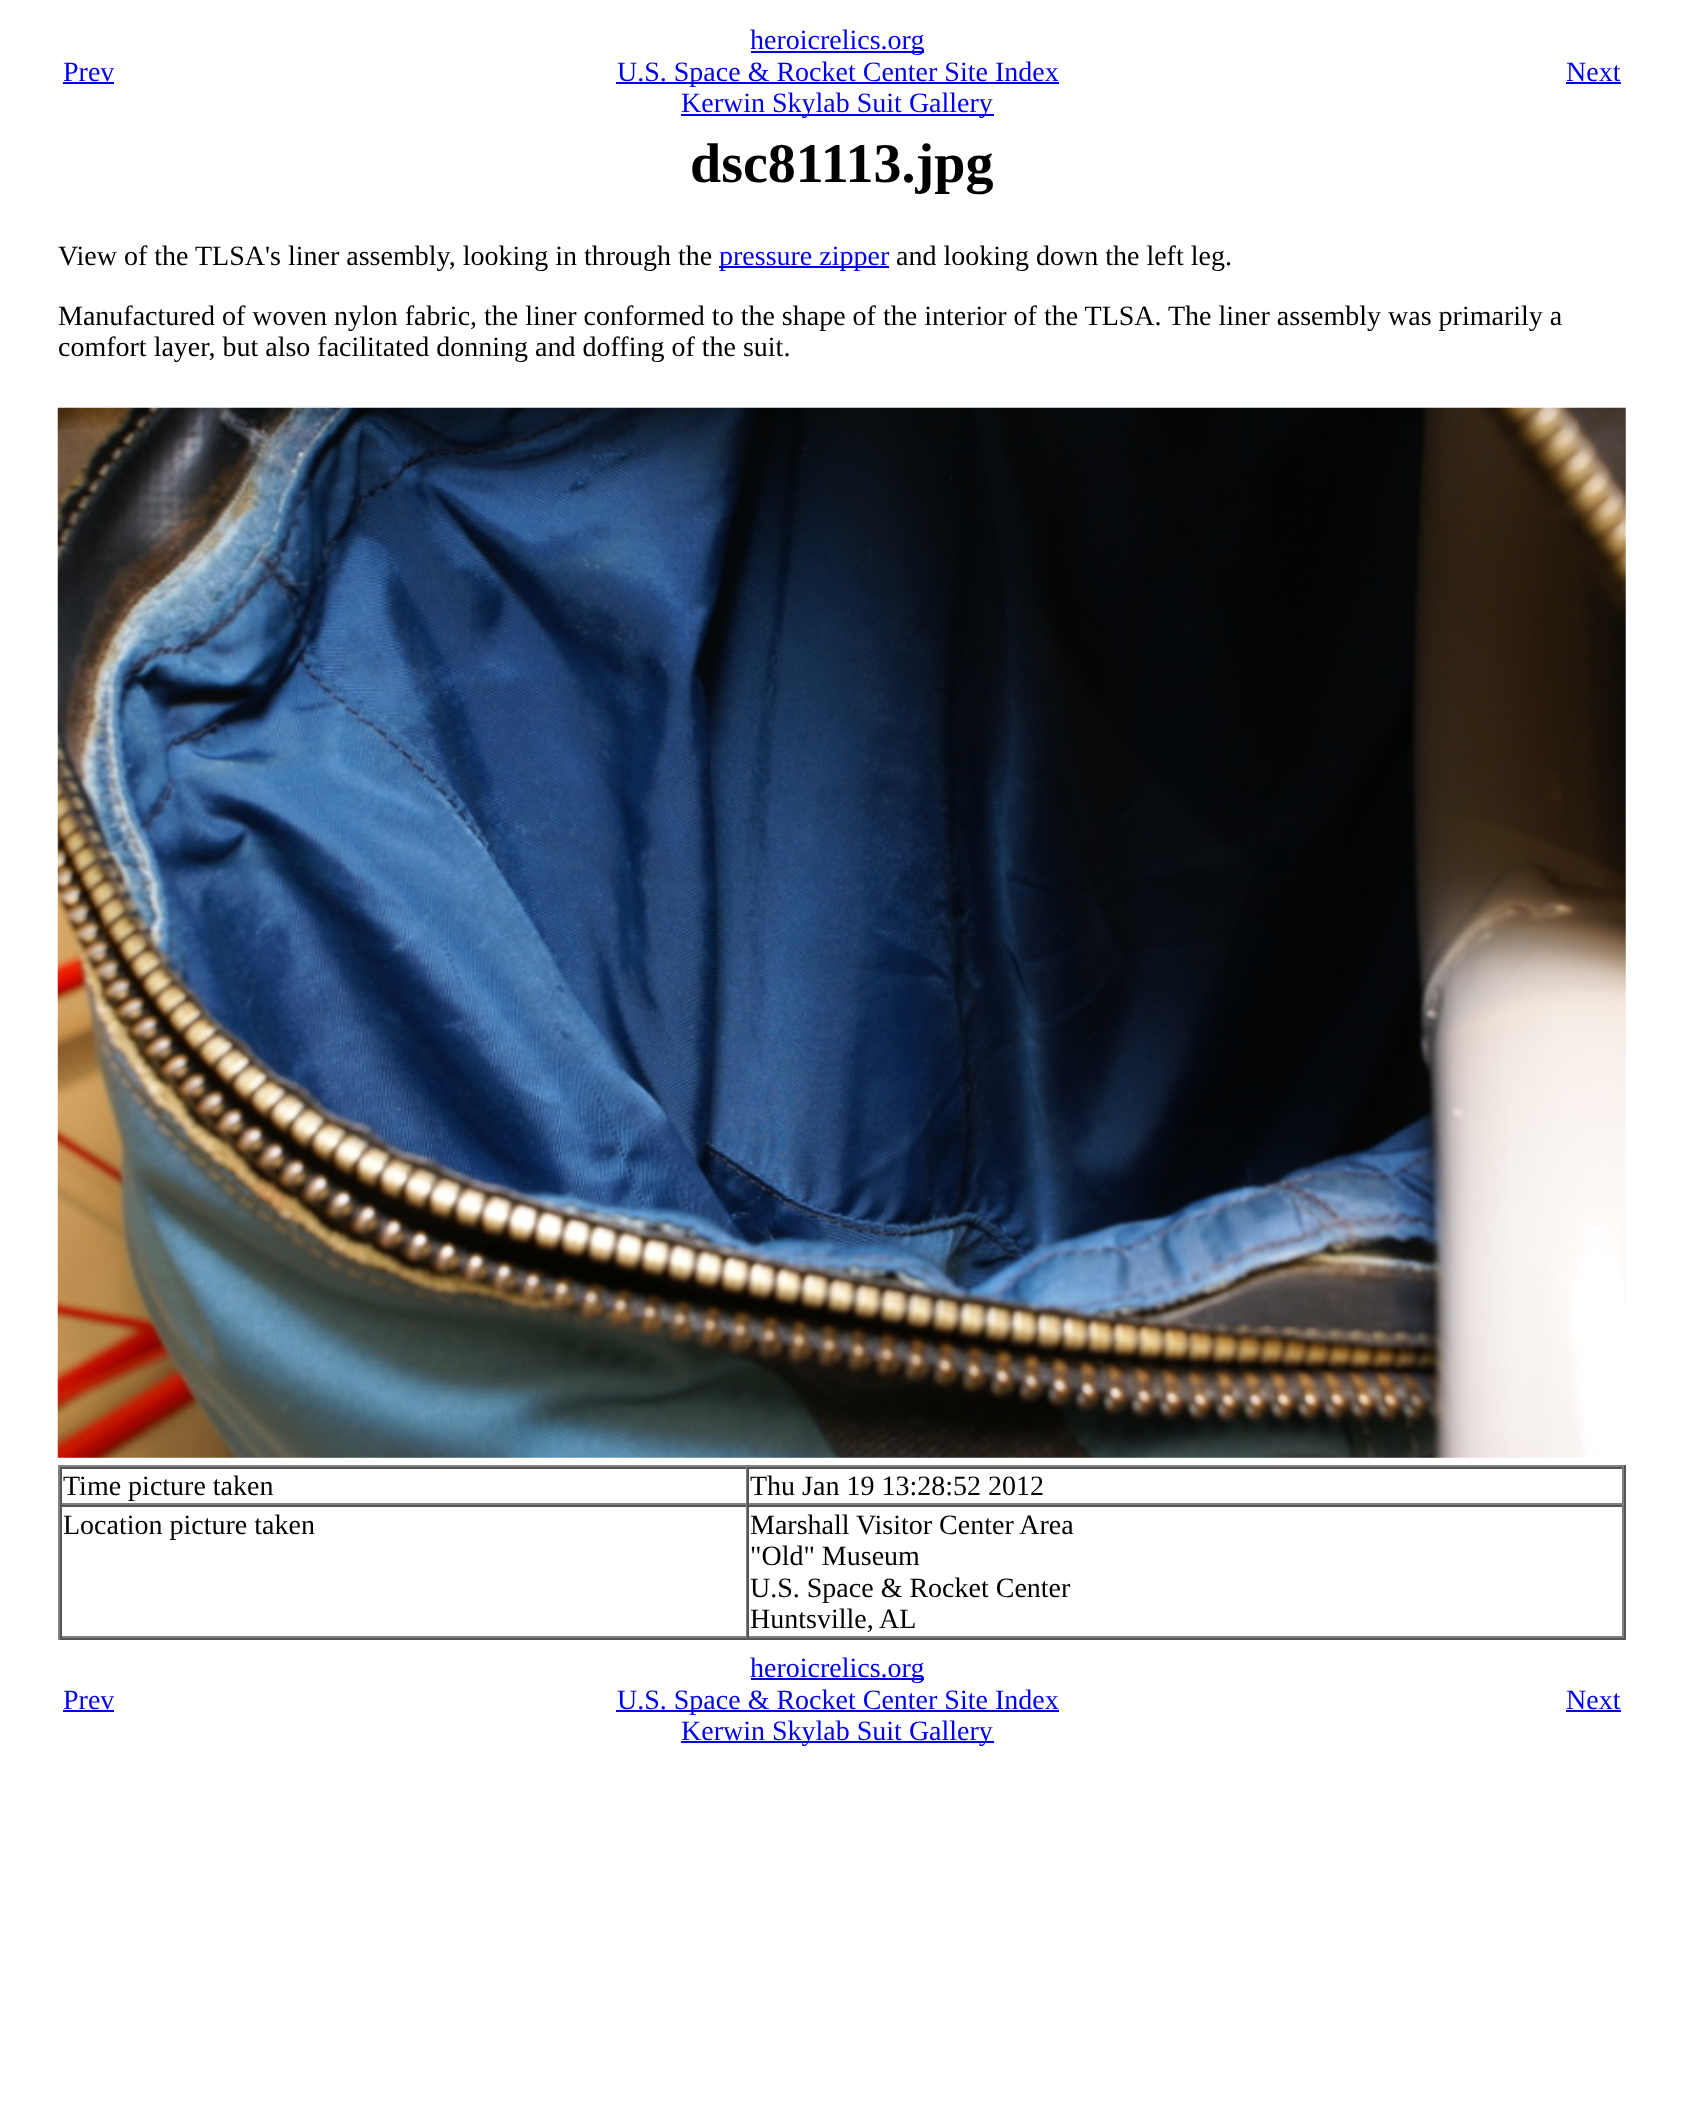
<svg xmlns="http://www.w3.org/2000/svg" width="1683" height="2128">
<rect width="100%" height="100%" fill="#fff"/>
<text x="63" y="81" style="font-family:Liberation Serif;font-size:28px;fill:#00e">Prev</text>
<rect x="63" y="82" width="51" height="2" fill="#00e"/>
<rect x="751" y="51" width="173" height="2" fill="#00e"/>
<text x="750" y="49" style="font-family:Liberation Serif;font-size:28px;fill:#00e">heroicrelics.org</text>
<rect x="616" y="82" width="443" height="2" fill="#00e"/>
<text x="617" y="81" style="font-family:Liberation Serif;font-size:28px;fill:#00e">U.S. Space &amp; Rocket Center Site Index</text>
<rect x="681" y="114" width="313" height="2" fill="#00e"/>
<text x="681" y="112" style="font-family:Liberation Serif;font-size:28px;fill:#00e">Kerwin Skylab Suit Gallery</text>
<text x="1566" y="81" style="font-family:Liberation Serif;font-size:28px;fill:#00e">Next</text>
<rect x="1566" y="82" width="55" height="2" fill="#00e"/>
<text x="690" y="182" style="font-family:Liberation Serif;font-size:56px;font-weight:bold;fill:#000">dsc81113.jpg</text>
<text x="58" y="265" style="font-family:Liberation Serif;font-size:28px;fill:#000">View of the TLSA's liner assembly, looking in through the</text>
<rect x="719" y="266" width="170" height="2" fill="#00e"/>
<text x="719" y="265" style="font-family:Liberation Serif;font-size:28px;fill:#00e">pressure zipper</text>
<text x="896" y="265" style="font-family:Liberation Serif;font-size:28px;fill:#000">and looking down the left leg.</text>
<text x="58" y="325" style="font-family:Liberation Serif;font-size:28px;fill:#000">Manufactured of woven nylon fabric, the liner conformed to the shape of the interior of the TLSA.</text>
<text x="1168" y="325" style="font-family:Liberation Serif;font-size:28px;fill:#000">The liner assembly was primarily a</text>
<text x="58" y="356" style="font-family:Liberation Serif;font-size:28px;fill:#000">comfort layer, but also facilitated donning and doffing of the suit.</text>
<image x="57" y="407" width="1569" height="1051" href="media/1.png"/>
<rect x="58" y="1465" width="1568" height="2" fill="#808080"/>
<rect x="1624" y="1465" width="2" height="175" fill="#555"/>
<rect x="58" y="1638" width="1568" height="2" fill="#555"/>
<rect x="58" y="1465" width="2" height="175" fill="#808080"/>
<rect x="60" y="1467" width="1564" height="2" fill="#555"/>
<rect x="746" y="1467" width="1" height="38" fill="#808080"/>
<rect x="60" y="1503" width="687" height="2" fill="#808080"/>
<rect x="60" y="1467" width="2" height="38" fill="#555"/>
<text x="63" y="1495" style="font-family:Liberation Serif;font-size:28px;fill:#000">Time picture taken</text>
<rect x="1622" y="1467" width="2" height="38" fill="#808080"/>
<rect x="747" y="1503" width="877" height="2" fill="#808080"/>
<rect x="747" y="1467" width="2" height="38" fill="#555"/>
<text x="750" y="1495" style="font-family:Liberation Serif;font-size:28px;fill:#000">Thu Jan 19 13:28:52 2012</text>
<rect x="60" y="1505" width="1564" height="2" fill="#555"/>
<rect x="746" y="1505" width="1" height="133" fill="#808080"/>
<rect x="60" y="1636" width="687" height="2" fill="#808080"/>
<rect x="60" y="1505" width="2" height="133" fill="#555"/>
<text x="63" y="1534" style="font-family:Liberation Serif;font-size:28px;fill:#000">Location picture taken</text>
<rect x="1622" y="1505" width="2" height="133" fill="#808080"/>
<rect x="747" y="1636" width="877" height="2" fill="#808080"/>
<rect x="747" y="1505" width="2" height="133" fill="#555"/>
<text x="750" y="1534" style="font-family:Liberation Serif;font-size:28px;fill:#000">Marshall Visitor Center Area</text>
<text x="750" y="1565" style="font-family:Liberation Serif;font-size:28px;fill:#000">"Old" Museum</text>
<text x="750" y="1597" style="font-family:Liberation Serif;font-size:28px;fill:#000">U.S. Space &amp; Rocket Center</text>
<text x="750" y="1628" style="font-family:Liberation Serif;font-size:28px;fill:#000">Huntsville, AL</text>
<text x="63" y="1709" style="font-family:Liberation Serif;font-size:28px;fill:#00e">Prev</text>
<rect x="63" y="1710" width="51" height="2" fill="#00e"/>
<rect x="751" y="1678" width="173" height="2" fill="#00e"/>
<text x="750" y="1677" style="font-family:Liberation Serif;font-size:28px;fill:#00e">heroicrelics.org</text>
<rect x="616" y="1710" width="443" height="2" fill="#00e"/>
<text x="617" y="1709" style="font-family:Liberation Serif;font-size:28px;fill:#00e">U.S. Space &amp; Rocket Center Site Index</text>
<rect x="681" y="1741" width="313" height="2" fill="#00e"/>
<text x="681" y="1740" style="font-family:Liberation Serif;font-size:28px;fill:#00e">Kerwin Skylab Suit Gallery</text>
<text x="1566" y="1709" style="font-family:Liberation Serif;font-size:28px;fill:#00e">Next</text>
<rect x="1566" y="1710" width="55" height="2" fill="#00e"/>
</svg>
